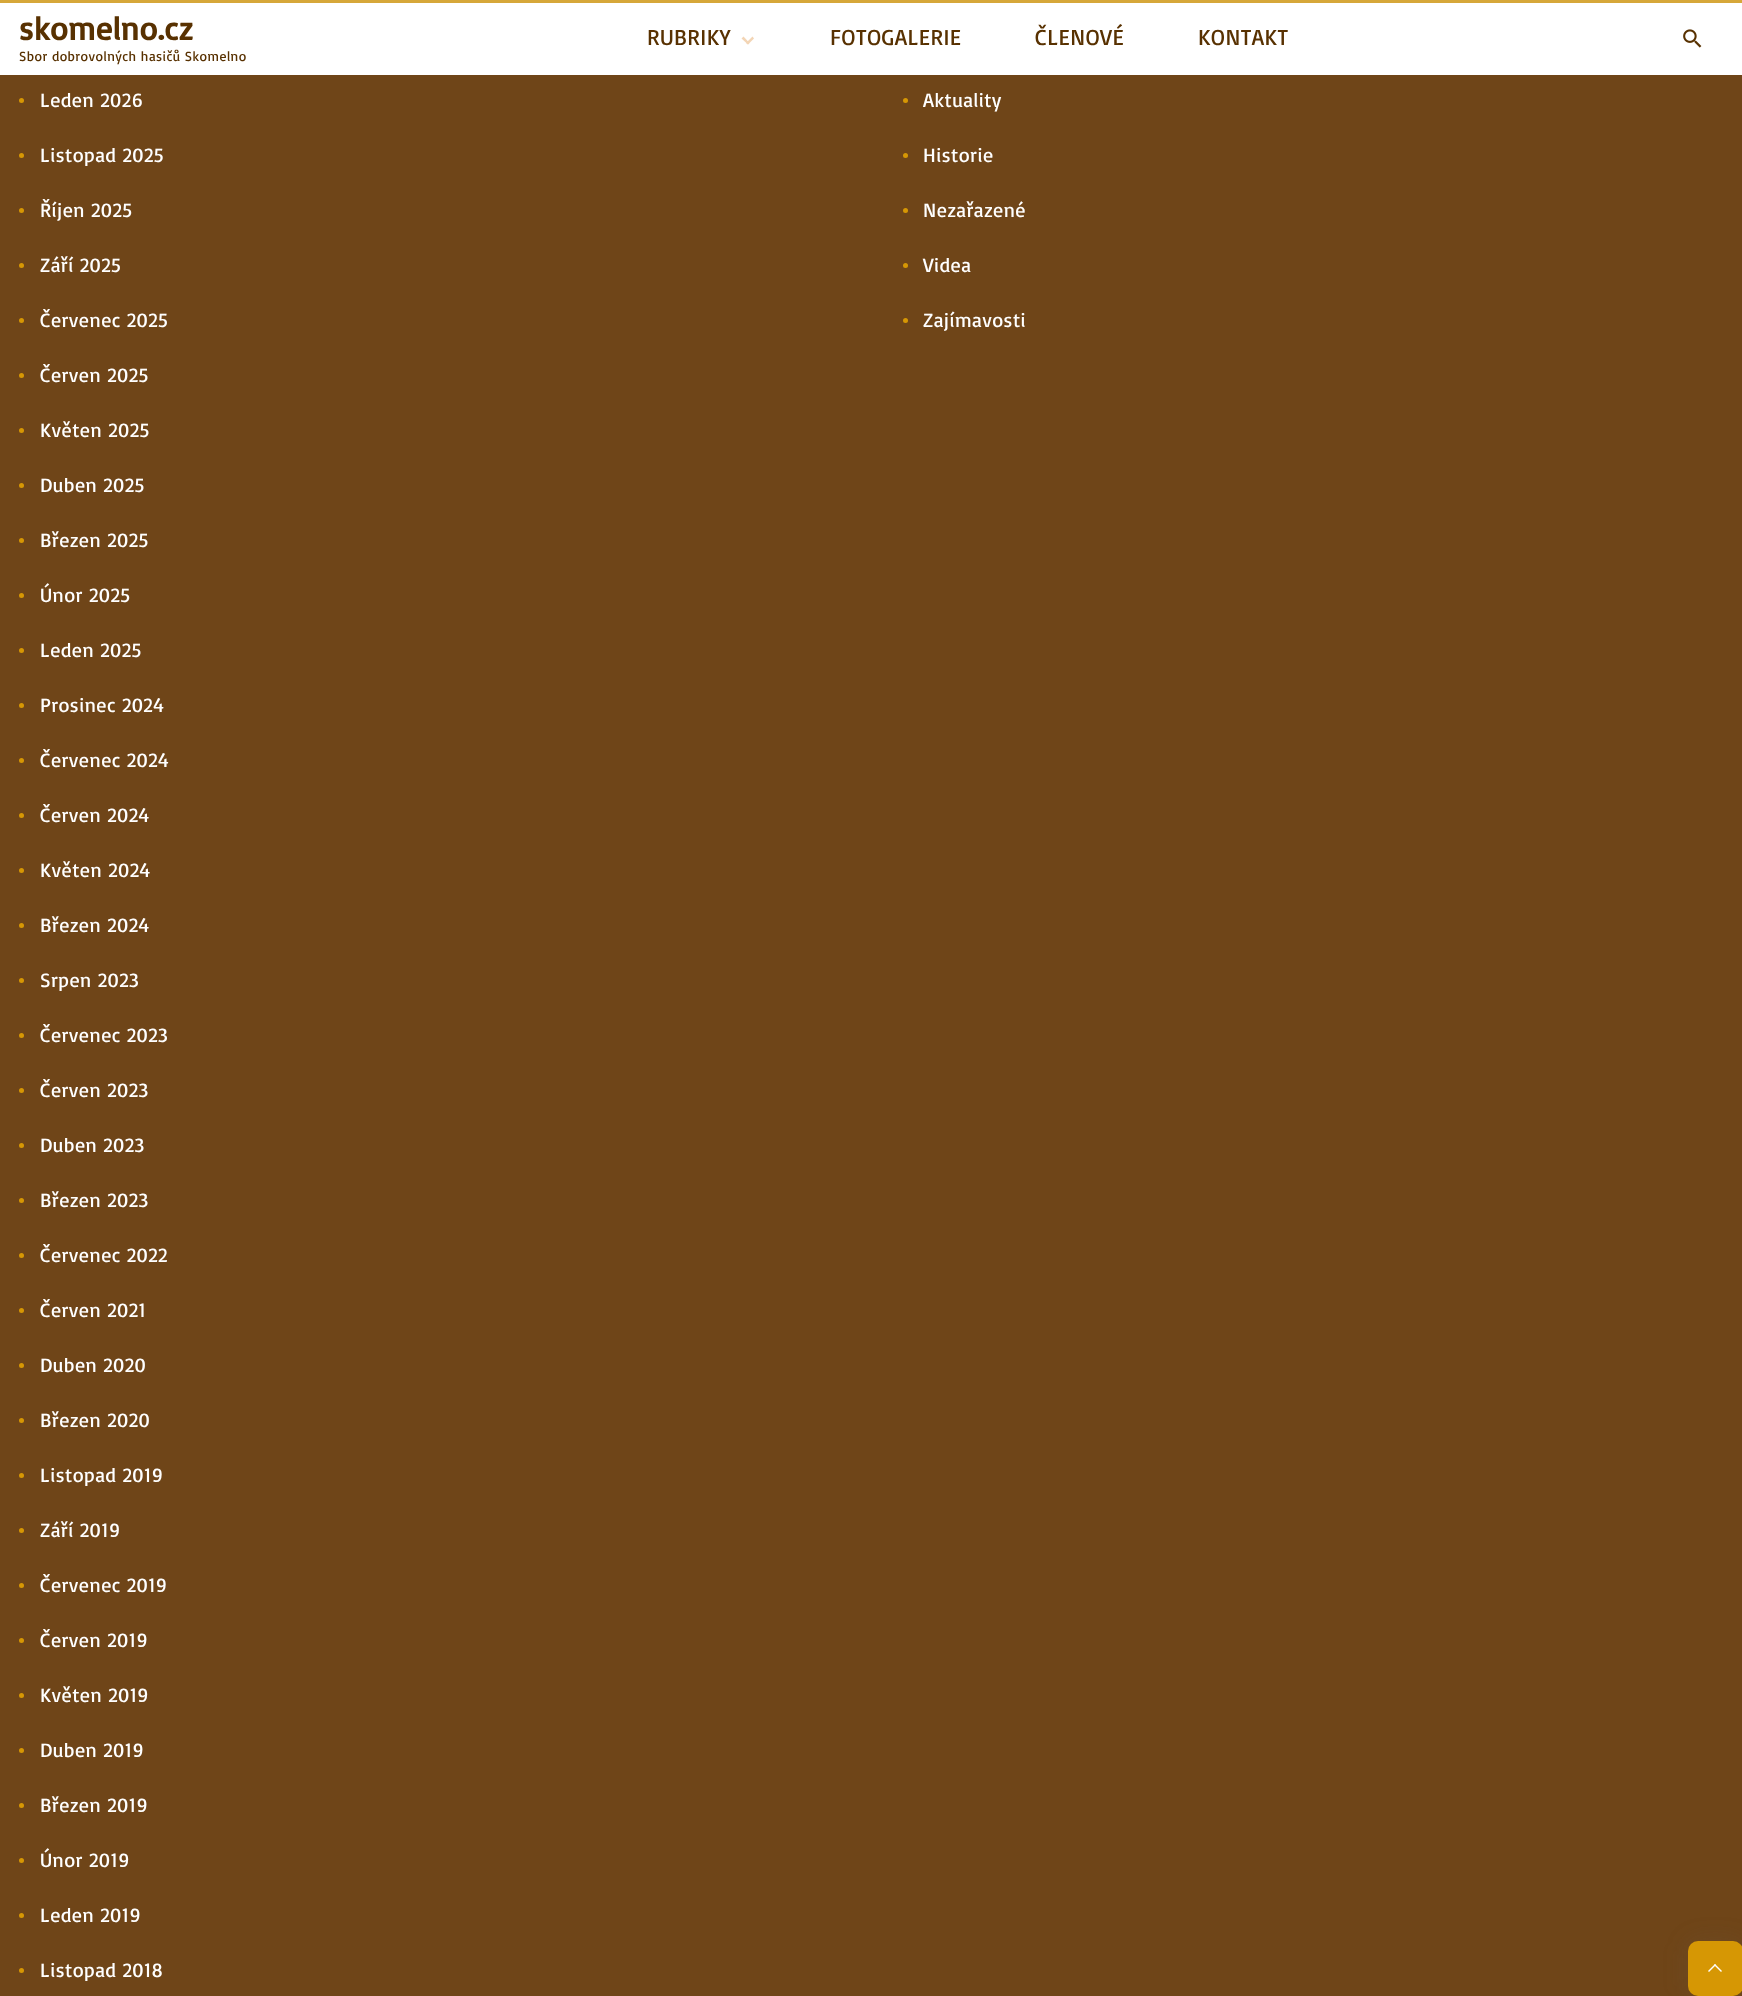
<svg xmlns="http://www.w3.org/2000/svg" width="1742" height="1996">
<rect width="100%" height="100%" fill="#6f4518"/>
<rect width="1742" height="3" fill="#d6a739"/>
<rect y="3" width="1742" height="72" fill="#fff"/>
<text x="19" y="40" style="font-family:Basic;font-size:32.5px;font-weight:bold;letter-spacing:0.45px;fill:#583101">skomelno.cz</text>
<text x="19" y="61" style="font-family:Basic;font-size:13.75px;letter-spacing:0.45px;fill:#583101">Sbor dobrovolných hasičů Skomelno</text>
<text x="647" y="45" style="font-family:Basic;font-size:22.5px;letter-spacing:0.45px;fill:#583101">RUBRIKY</text>
<path d="M754 38.5l-6 6l-2-1.5l6.5-6.5z" fill="#f3d5b5"/>
<path d="M749.5 43l-1.5 1.5l-6.5-6l2-2z" fill="#f3d5b5"/>
<text x="830" y="45" style="font-family:Basic;font-size:22.5px;letter-spacing:0.45px;fill:#583101">FOTOGALERIE</text>
<text x="1035" y="45" style="font-family:Basic;font-size:22.5px;letter-spacing:0.45px;fill:#583101">ČLENOVÉ</text>
<text x="1198" y="45" style="font-family:Basic;font-size:22.5px;letter-spacing:0.45px;fill:#583101">KONTAKT</text>
<image x="1683" y="29" width="19" height="19" href="media/1.png"/>
<circle cx="21.5" cy="100.5" r="2.5" fill="#d69704"/>
<text x="40" y="107" style="font-family:Basic;font-size:20px;letter-spacing:0.45px;fill:#fff">Leden 2026</text>
<circle cx="21.5" cy="155.5" r="2.5" fill="#d69704"/>
<text x="40" y="162" style="font-family:Basic;font-size:20px;letter-spacing:0.45px;fill:#fff">Listopad 2025</text>
<circle cx="21.5" cy="210.5" r="2.5" fill="#d69704"/>
<text x="40" y="217" style="font-family:Basic;font-size:20px;letter-spacing:0.45px;fill:#fff">Říjen 2025</text>
<circle cx="21.5" cy="265.5" r="2.5" fill="#d69704"/>
<text x="40" y="272" style="font-family:Basic;font-size:20px;letter-spacing:0.45px;fill:#fff">Září 2025</text>
<circle cx="21.5" cy="320.5" r="2.5" fill="#d69704"/>
<text x="40" y="327" style="font-family:Basic;font-size:20px;letter-spacing:0.45px;fill:#fff">Červenec 2025</text>
<circle cx="21.5" cy="375.5" r="2.5" fill="#d69704"/>
<text x="40" y="382" style="font-family:Basic;font-size:20px;letter-spacing:0.45px;fill:#fff">Červen 2025</text>
<circle cx="21.5" cy="430.5" r="2.5" fill="#d69704"/>
<text x="40" y="437" style="font-family:Basic;font-size:20px;letter-spacing:0.45px;fill:#fff">Květen 2025</text>
<circle cx="21.5" cy="485.5" r="2.5" fill="#d69704"/>
<text x="40" y="492" style="font-family:Basic;font-size:20px;letter-spacing:0.45px;fill:#fff">Duben 2025</text>
<circle cx="21.5" cy="540.5" r="2.5" fill="#d69704"/>
<text x="40" y="547" style="font-family:Basic;font-size:20px;letter-spacing:0.45px;fill:#fff">Březen 2025</text>
<circle cx="21.5" cy="595.5" r="2.5" fill="#d69704"/>
<text x="40" y="602" style="font-family:Basic;font-size:20px;letter-spacing:0.45px;fill:#fff">Únor 2025</text>
<circle cx="21.5" cy="650.5" r="2.5" fill="#d69704"/>
<text x="40" y="657" style="font-family:Basic;font-size:20px;letter-spacing:0.45px;fill:#fff">Leden 2025</text>
<circle cx="21.5" cy="705.5" r="2.5" fill="#d69704"/>
<text x="40" y="712" style="font-family:Basic;font-size:20px;letter-spacing:0.45px;fill:#fff">Prosinec 2024</text>
<circle cx="21.5" cy="760.5" r="2.5" fill="#d69704"/>
<text x="40" y="767" style="font-family:Basic;font-size:20px;letter-spacing:0.45px;fill:#fff">Červenec 2024</text>
<circle cx="21.5" cy="815.5" r="2.5" fill="#d69704"/>
<text x="40" y="822" style="font-family:Basic;font-size:20px;letter-spacing:0.45px;fill:#fff">Červen 2024</text>
<circle cx="21.5" cy="870.5" r="2.5" fill="#d69704"/>
<text x="40" y="877" style="font-family:Basic;font-size:20px;letter-spacing:0.45px;fill:#fff">Květen 2024</text>
<circle cx="21.5" cy="925.5" r="2.5" fill="#d69704"/>
<text x="40" y="932" style="font-family:Basic;font-size:20px;letter-spacing:0.45px;fill:#fff">Březen 2024</text>
<circle cx="21.5" cy="980.5" r="2.5" fill="#d69704"/>
<text x="40" y="987" style="font-family:Basic;font-size:20px;letter-spacing:0.45px;fill:#fff">Srpen 2023</text>
<circle cx="21.5" cy="1035.5" r="2.5" fill="#d69704"/>
<text x="40" y="1042" style="font-family:Basic;font-size:20px;letter-spacing:0.45px;fill:#fff">Červenec 2023</text>
<circle cx="21.5" cy="1090.5" r="2.5" fill="#d69704"/>
<text x="40" y="1097" style="font-family:Basic;font-size:20px;letter-spacing:0.45px;fill:#fff">Červen 2023</text>
<circle cx="21.5" cy="1145.5" r="2.5" fill="#d69704"/>
<text x="40" y="1152" style="font-family:Basic;font-size:20px;letter-spacing:0.45px;fill:#fff">Duben 2023</text>
<circle cx="21.5" cy="1200.5" r="2.5" fill="#d69704"/>
<text x="40" y="1207" style="font-family:Basic;font-size:20px;letter-spacing:0.45px;fill:#fff">Březen 2023</text>
<circle cx="21.5" cy="1255.5" r="2.5" fill="#d69704"/>
<text x="40" y="1262" style="font-family:Basic;font-size:20px;letter-spacing:0.45px;fill:#fff">Červenec 2022</text>
<circle cx="21.5" cy="1310.5" r="2.5" fill="#d69704"/>
<text x="40" y="1317" style="font-family:Basic;font-size:20px;letter-spacing:0.45px;fill:#fff">Červen 2021</text>
<circle cx="21.5" cy="1365.5" r="2.5" fill="#d69704"/>
<text x="40" y="1372" style="font-family:Basic;font-size:20px;letter-spacing:0.45px;fill:#fff">Duben 2020</text>
<circle cx="21.5" cy="1420.5" r="2.5" fill="#d69704"/>
<text x="40" y="1427" style="font-family:Basic;font-size:20px;letter-spacing:0.45px;fill:#fff">Březen 2020</text>
<circle cx="21.5" cy="1475.5" r="2.5" fill="#d69704"/>
<text x="40" y="1482" style="font-family:Basic;font-size:20px;letter-spacing:0.45px;fill:#fff">Listopad 2019</text>
<circle cx="21.5" cy="1530.5" r="2.5" fill="#d69704"/>
<text x="40" y="1537" style="font-family:Basic;font-size:20px;letter-spacing:0.45px;fill:#fff">Září 2019</text>
<circle cx="21.5" cy="1585.5" r="2.5" fill="#d69704"/>
<text x="40" y="1592" style="font-family:Basic;font-size:20px;letter-spacing:0.45px;fill:#fff">Červenec 2019</text>
<circle cx="21.5" cy="1640.5" r="2.5" fill="#d69704"/>
<text x="40" y="1647" style="font-family:Basic;font-size:20px;letter-spacing:0.45px;fill:#fff">Červen 2019</text>
<circle cx="21.5" cy="1695.5" r="2.5" fill="#d69704"/>
<text x="40" y="1702" style="font-family:Basic;font-size:20px;letter-spacing:0.45px;fill:#fff">Květen 2019</text>
<circle cx="21.5" cy="1750.5" r="2.5" fill="#d69704"/>
<text x="40" y="1757" style="font-family:Basic;font-size:20px;letter-spacing:0.45px;fill:#fff">Duben 2019</text>
<circle cx="21.5" cy="1805.5" r="2.5" fill="#d69704"/>
<text x="40" y="1812" style="font-family:Basic;font-size:20px;letter-spacing:0.45px;fill:#fff">Březen 2019</text>
<circle cx="21.5" cy="1860.5" r="2.5" fill="#d69704"/>
<text x="40" y="1867" style="font-family:Basic;font-size:20px;letter-spacing:0.45px;fill:#fff">Únor 2019</text>
<circle cx="21.5" cy="1915.5" r="2.5" fill="#d69704"/>
<text x="40" y="1922" style="font-family:Basic;font-size:20px;letter-spacing:0.45px;fill:#fff">Leden 2019</text>
<circle cx="21.5" cy="1970.5" r="2.5" fill="#d69704"/>
<text x="40" y="1977" style="font-family:Basic;font-size:20px;letter-spacing:0.45px;fill:#fff">Listopad 2018</text>
<circle cx="905.5" cy="100.5" r="2.5" fill="#d69704"/>
<text x="923" y="107" style="font-family:Basic;font-size:20px;letter-spacing:0.45px;fill:#fff">Aktuality</text>
<circle cx="905.5" cy="155.5" r="2.5" fill="#d69704"/>
<text x="923" y="162" style="font-family:Basic;font-size:20px;letter-spacing:0.45px;fill:#fff">Historie</text>
<circle cx="905.5" cy="210.5" r="2.5" fill="#d69704"/>
<text x="923" y="217" style="font-family:Basic;font-size:20px;letter-spacing:0.45px;fill:#fff">Nezařazené</text>
<circle cx="905.5" cy="265.5" r="2.5" fill="#d69704"/>
<text x="923" y="272" style="font-family:Basic;font-size:20px;letter-spacing:0.45px;fill:#fff">Videa</text>
<circle cx="905.5" cy="320.5" r="2.5" fill="#d69704"/>
<text x="923" y="327" style="font-family:Basic;font-size:20px;letter-spacing:0.45px;fill:#fff">Zajímavosti</text>
<rect x="1688" y="1941" width="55" height="55" rx="10" fill="#64646426" filter="blur(12.5px)"/>
<rect x="1688" y="1941" width="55" height="55" rx="10" fill="#d69704"/>
<path d="M1708 1971l7-7l1 1l-7 7z" fill="#fff"/>
<path d="M1714 1965l1-1l7 7l-1 1z" fill="#fff"/>
</svg>
